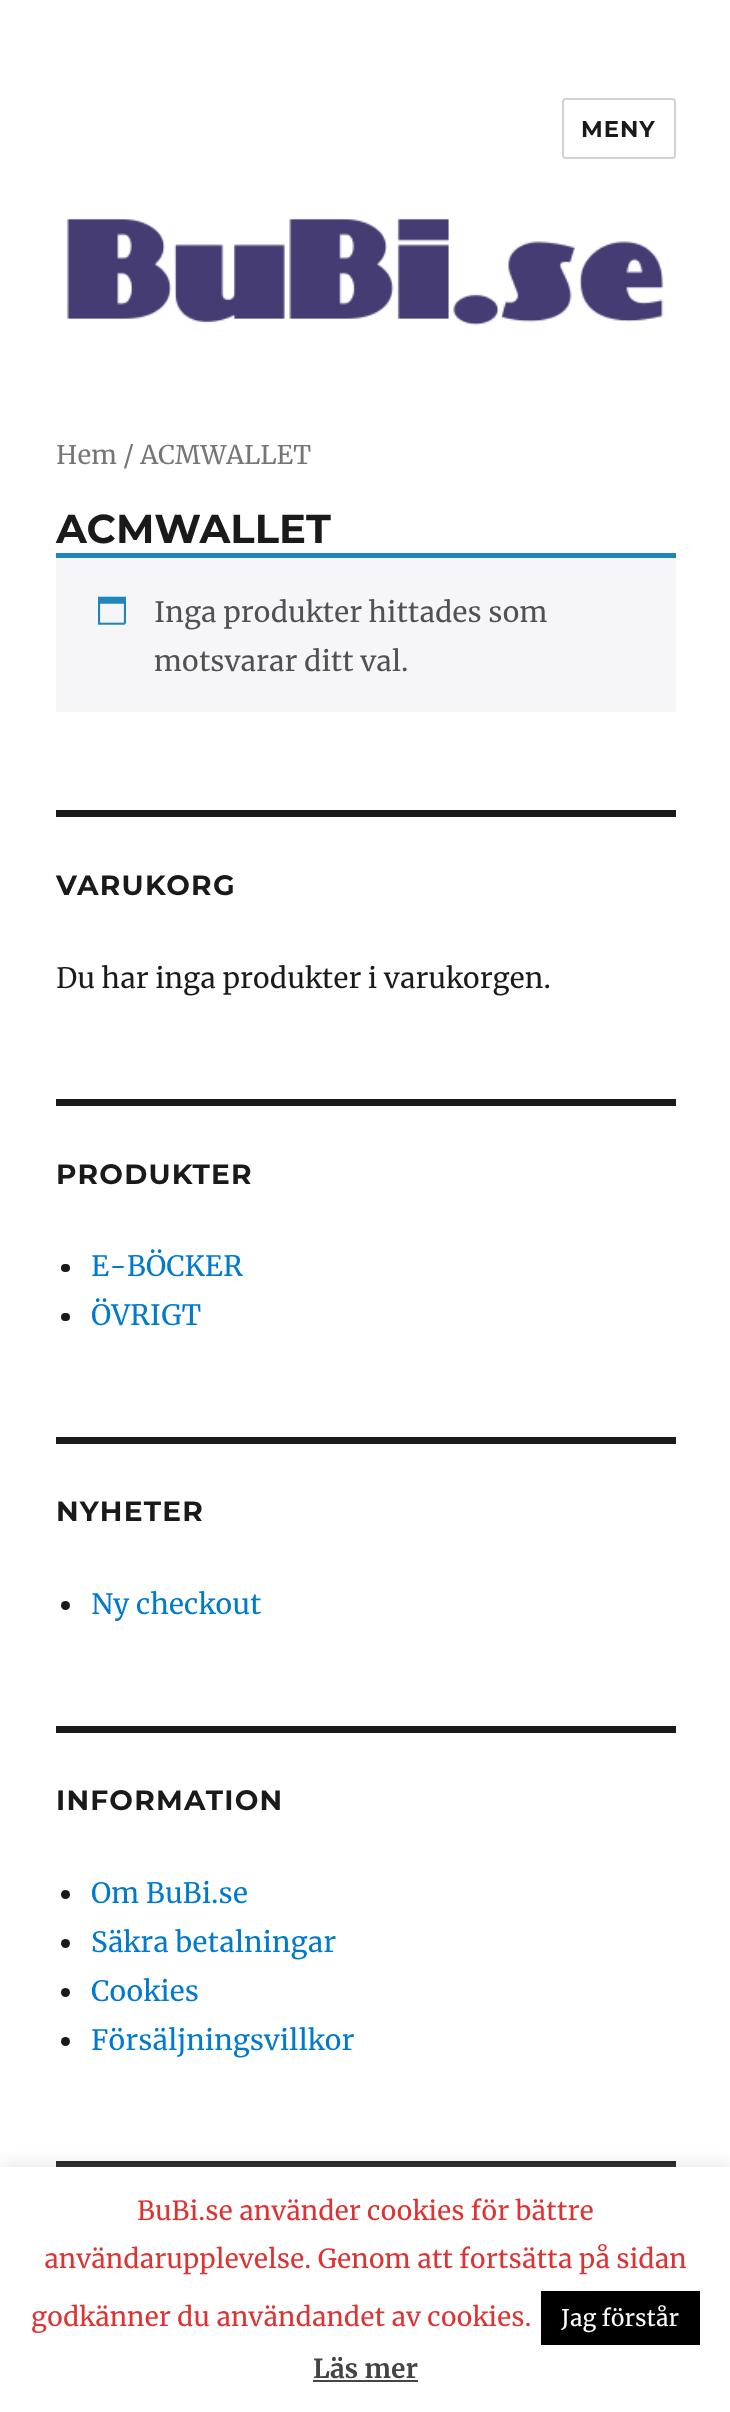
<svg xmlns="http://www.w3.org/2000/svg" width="730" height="2412">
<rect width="100%" height="100%" fill="#fff"/>
<rect x="563" y="99" width="112" height="59" rx="3" fill="none" stroke="#d1d1d1" stroke-width="2"/>
<text x="581" y="137" style="font-family:Montserrat;font-size:22.75px;font-weight:100;letter-spacing:1px;fill:#1a1a1a">MENY</text>
<image x="66" y="218" width="598" height="108" href="media/1.png"/>
<text x="56" y="464" style="font-family:Merriweather;font-size:25.75px;fill:#767676">Hem / ACMWALLET</text>
<text x="56" y="543" style="font-family:Montserrat;font-size:40.25px;font-weight:100;fill:#1a1a1a">ACMWALLET</text>
<rect x="56" y="558" width="620" height="154" fill="#f6f5f8"/>
<rect x="56" y="553" width="620" height="5" fill="#1e85be"/>
<image x="98" y="596" width="28" height="29" href="media/2.png"/>
<text x="154" y="622" style="font-family:Merriweather;font-size:28px;fill:#515151">Inga produkter hittades som</text>
<text x="154" y="671" style="font-family:Merriweather;font-size:28px;fill:#515151">motsvarar ditt val.</text>
<rect x="56" y="810" width="620" height="7" fill="#1a1a1a"/>
<text x="56" y="895" style="font-family:Montserrat;font-size:28px;font-weight:100;letter-spacing:1.25px;fill:#1a1a1a">VARUKORG</text>
<text x="56" y="988" style="font-family:Merriweather;font-size:28px;fill:#1a1a1a">Du har inga produkter i varukorgen.</text>
<rect x="56" y="1099" width="620" height="7" fill="#1a1a1a"/>
<text x="56" y="1184" style="font-family:Montserrat;font-size:28px;font-weight:100;letter-spacing:1.25px;fill:#1a1a1a">PRODUKTER</text>
<rect x="61" y="1264" width="9" height="8" rx="4" fill="#1a1a1a"/>
<text x="91" y="1276" style="font-family:Merriweather;font-size:28px;fill:#007acc">E-BÖCKER</text>
<rect x="61" y="1313" width="9" height="8" rx="4" fill="#1a1a1a"/>
<text x="91" y="1325" style="font-family:Merriweather;font-size:28px;fill:#007acc">ÖVRIGT</text>
<rect x="56" y="1437" width="620" height="7" fill="#1a1a1a"/>
<text x="56" y="1521" style="font-family:Montserrat;font-size:28px;font-weight:100;letter-spacing:1.25px;fill:#1a1a1a">NYHETER</text>
<circle cx="65.5" cy="1605.5" r="4.5" fill="#1a1a1a"/>
<text x="91" y="1614" style="font-family:Merriweather;font-size:28px;fill:#007acc">Ny checkout</text>
<rect x="56" y="1726" width="620" height="7" fill="#1a1a1a"/>
<text x="56" y="1810" style="font-family:Montserrat;font-size:28px;font-weight:100;letter-spacing:1.25px;fill:#1a1a1a">INFORMATION</text>
<circle cx="65.5" cy="1894.5" r="4.5" fill="#1a1a1a"/>
<text x="91" y="1903" style="font-family:Merriweather;font-size:28px;fill:#007acc">Om BuBi.se</text>
<circle cx="65.5" cy="1943.5" r="4.5" fill="#1a1a1a"/>
<text x="91" y="1952" style="font-family:Merriweather;font-size:28px;fill:#007acc">Säkra betalningar</text>
<circle cx="65.5" cy="1992.5" r="4.5" fill="#1a1a1a"/>
<text x="91" y="2001" style="font-family:Merriweather;font-size:28px;fill:#007acc">Cookies</text>
<circle cx="65.5" cy="2041.5" r="4.5" fill="#1a1a1a"/>
<text x="91" y="2050" style="font-family:Merriweather;font-size:28px;fill:#007acc">Försäljningsvillkor</text>
<rect x="56" y="2161" width="620" height="6" fill="#1a1a1a"/>
<rect y="2165" width="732" height="247" fill="#acabab4d" filter="blur(9px)"/>
<rect y="2167" width="730" height="245" fill="#fff"/>
<text x="137" y="2220" style="font-family:Merriweather;font-size:26.25px;fill:#d33">BuBi.se använder cookies för bättre</text>
<text x="44" y="2268" style="font-family:Merriweather;font-size:26.25px;fill:#d33">användarupplevelse. Genom att fortsätta på sidan</text>
<text x="31" y="2326" style="font-family:Merriweather;font-size:26.25px;fill:#d33">godkänner du användandet av cookies.</text>
<rect x="541" y="2291" width="159" height="54" fill="#000"/>
<text x="561" y="2326" style="font-family:Merriweather;font-size:22.75px;fill:#fff">Jag förstår</text>
<text x="313" y="2378" style="font-family:Merriweather;font-size:26.25px;font-weight:bold;fill:#444">Läs mer</text>
<rect x="313" y="2380" width="105" height="2" fill="#444"/>
</svg>
